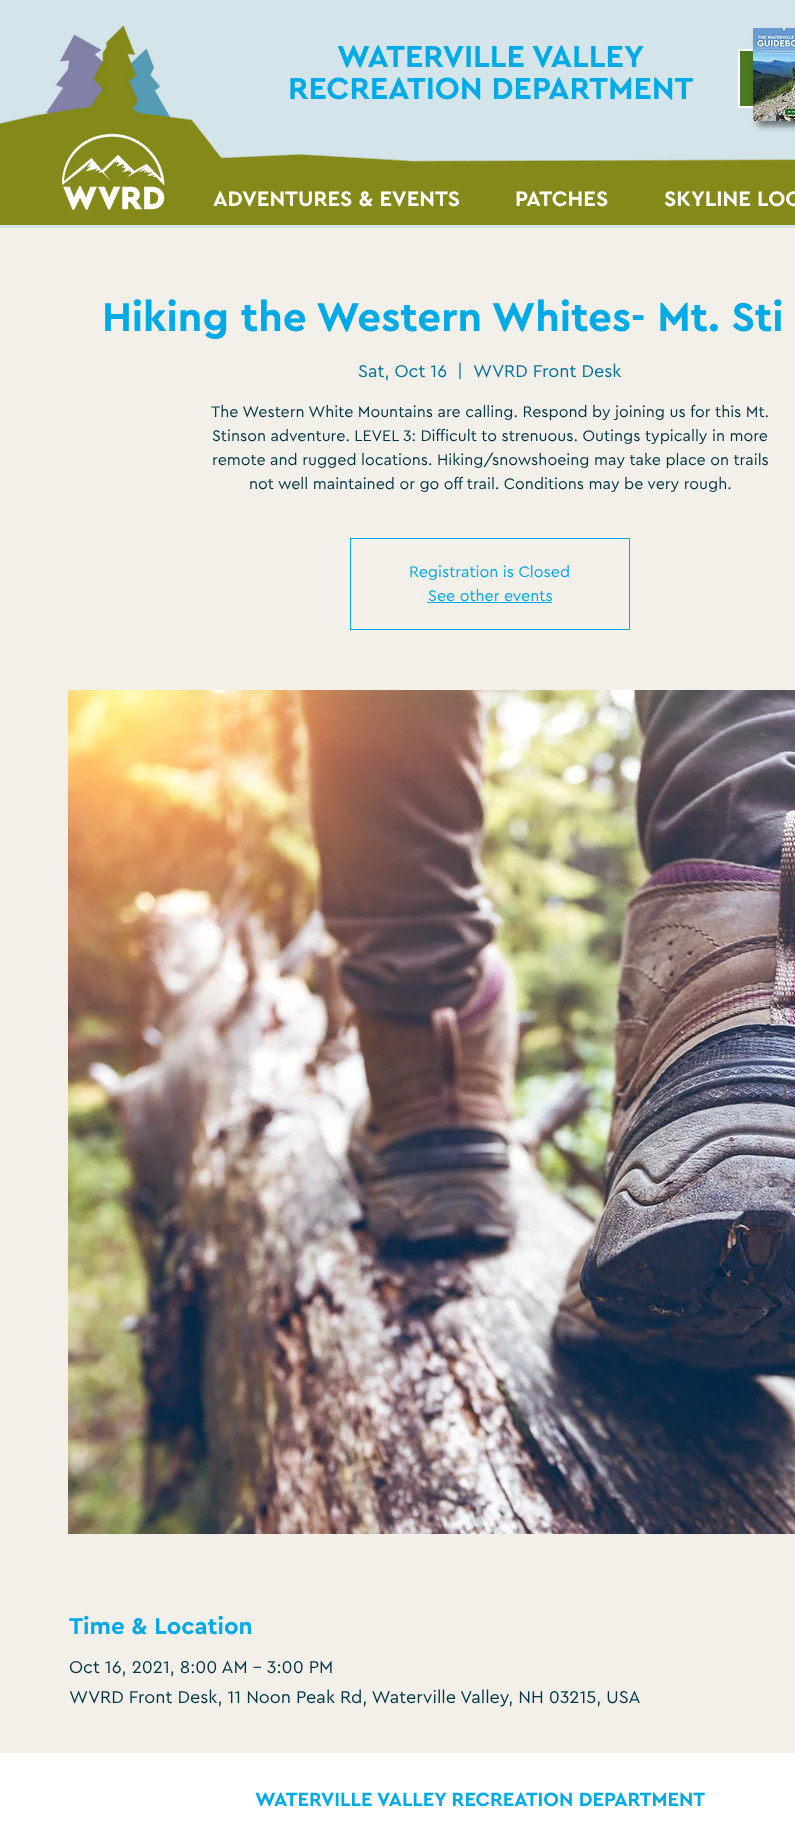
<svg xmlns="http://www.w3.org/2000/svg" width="795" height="1828">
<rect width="100%" height="100%" fill="#fff"/>
<rect width="795" height="228" fill="#d3e5eb"/>
<image x="0" y="25" width="795" height="200" href="media/2.png"/>
<rect x="740" y="51" width="13" height="55" fill="#4a7824"/>
<rect x="739" y="50" width="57" height="57" fill="none" stroke="#fff" stroke-width="2"/>
<rect x="758" y="33" width="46" height="93" fill="#00000080" filter="blur(3px)"/>
<image x="753" y="28" width="42" height="93" href="media/1.png"/>
<text x="337" y="67" style="font-family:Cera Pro;font-size:32px;font-weight:bold;fill:#00aae7">WATERVILLE VALLEY</text>
<text x="288" y="99" style="font-family:Cera Pro;font-size:32px;font-weight:bold;fill:#00aae7">RECREATION DEPARTMENT</text>
<image x="61" y="133" width="104" height="77" href="media/3.png"/>
<text x="213" y="206" style="font-family:Cera Pro;font-size:22px;font-weight:bold;fill:#fff">ADVENTURES &amp; EVENTS</text>
<text x="515" y="206" style="font-family:Cera Pro;font-size:22px;font-weight:bold;fill:#fff">PATCHES</text>
<text x="664" y="206" style="font-family:Cera Pro;font-size:22px;font-weight:bold;fill:#fff">SKYLINE LOO</text>
<rect y="228" width="795" height="1525" fill="#f2f0e9"/>
<text x="102" y="331" style="font-family:Cera Pro;font-size:42px;font-weight:bold;fill:#00aae7">Hiking the Western Whites- Mt. Sti</text>
<text x="358" y="377" style="font-family:Cera Pro;font-size:18px;fill:#00719a">Sat, Oct 16</text>
<text x="457" y="377" style="font-family:Cera Pro;font-size:18px;fill:#00719a">|</text>
<text x="473" y="377" style="font-family:Cera Pro;font-size:18px;fill:#00719a">WVRD Front Desk</text>
<text x="211" y="417" style="font-family:Cera Pro;font-size:16px;fill:#003546">The Western White Mountains are calling. Respond by joining us for this Mt.</text>
<text x="212" y="441" style="font-family:Cera Pro;font-size:16px;fill:#003546">Stinson adventure. LEVEL 3: Difficult to strenuous. Outings typically in more</text>
<text x="212" y="465" style="font-family:Cera Pro;font-size:16px;fill:#003546">remote and rugged locations. Hiking/snowshoeing may take place on trails</text>
<text x="249" y="489" style="font-family:Cera Pro;font-size:16px;fill:#003546">not well maintained or go off trail. Conditions may be very rough.</text>
<rect x="350.5" y="538.5" width="279" height="91" fill="none" stroke="#00aae7"/>
<text x="409" y="577" style="font-family:Cera Pro;font-size:16px;fill:#00aae7">Registration is Closed</text>
<text x="428" y="601" style="font-family:Cera Pro;font-size:16px;fill:#00aae7">See other events</text>
<rect x="428" y="602" width="124" height="1" fill="#00aae7"/>
<image x="68" y="690" width="727" height="844" href="media/4.png"/>
<text x="69" y="1634" style="font-family:Cera Pro;font-size:24px;font-weight:bold;fill:#00aae7">Time &amp; Location</text>
<text x="69" y="1673" style="font-family:Cera Pro;font-size:18px;fill:#003546">Oct 16, 2021, 8:00 AM – 3:00 PM</text>
<text x="69" y="1703" style="font-family:Cera Pro;font-size:18px;fill:#003546">WVRD Front Desk, 11 Noon Peak Rd, Waterville Valley, NH 03215, USA</text>
<text x="255" y="1806" style="font-family:Cera Pro;font-size:20px;font-weight:bold;fill:#00aae7">WATERVILLE VALLEY RECREATION DEPARTMENT</text>
</svg>
